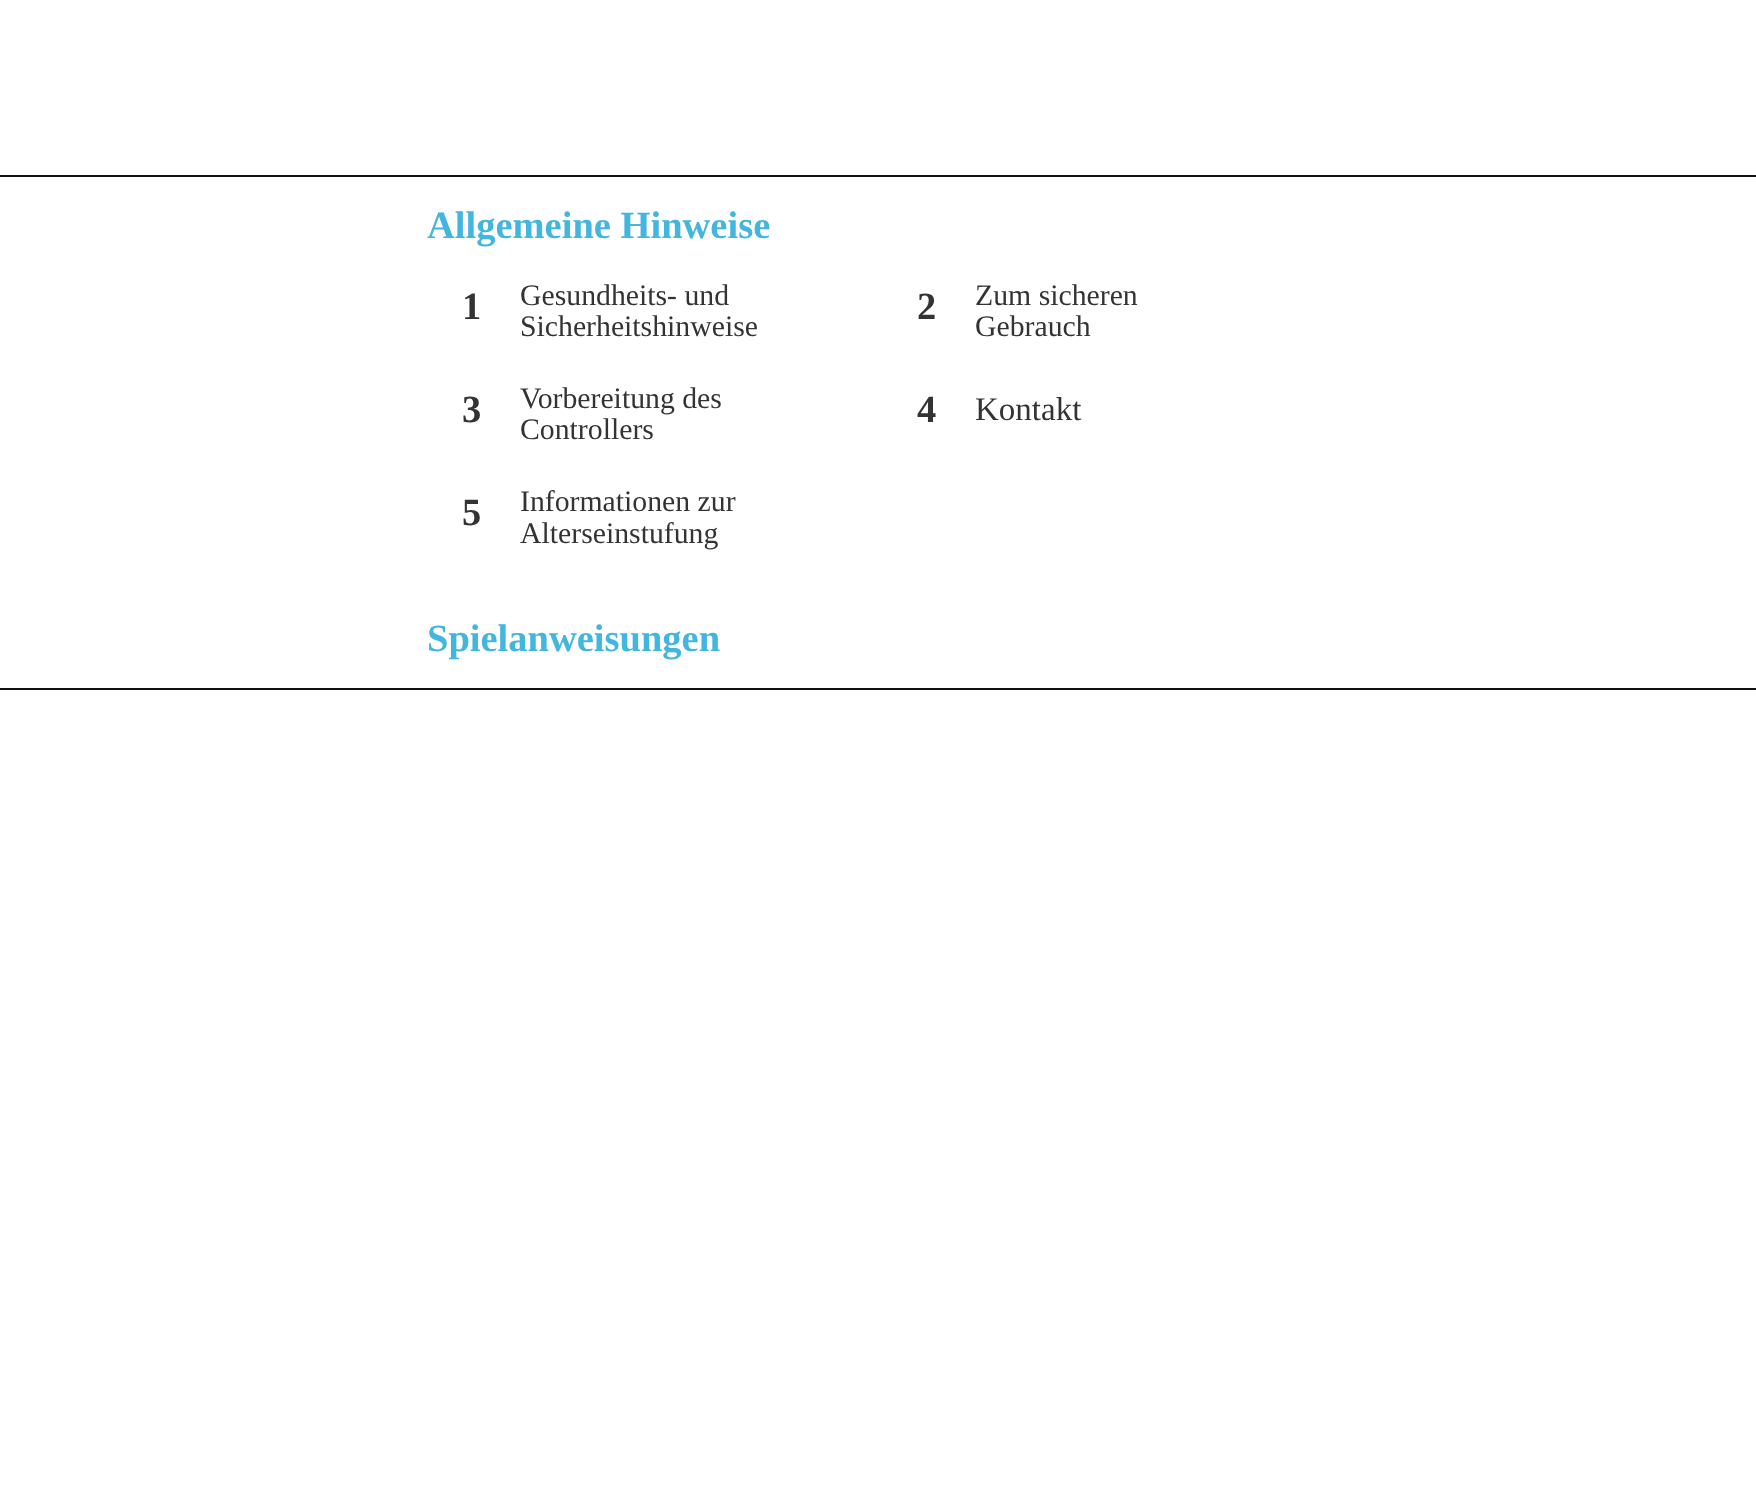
<svg xmlns="http://www.w3.org/2000/svg" width="1756" height="1508">
<rect width="100%" height="100%" fill="#fff"/>
<rect x="-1" y="176" width="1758" height="513" fill="none" stroke="#101010" stroke-width="2"/>
<text x="427" y="238" style="font-family:Liberation Serif;font-size:38.5px;font-weight:bold;fill:#43b6df">Allgemeine Hinweise</text>
<text x="462" y="319" style="font-family:Liberation Serif;font-size:38.5px;font-weight:bold;fill:#333">1</text>
<text x="520" y="305" style="font-family:Liberation Serif;font-size:29.75px;fill:#333">Gesundheits- und</text>
<text x="520" y="336" style="font-family:Liberation Serif;font-size:29.75px;fill:#333">Sicherheitshinweise</text>
<text x="917" y="319" style="font-family:Liberation Serif;font-size:38.5px;font-weight:bold;fill:#333">2</text>
<text x="975" y="305" style="font-family:Liberation Serif;font-size:29.75px;fill:#333">Zum sicheren</text>
<text x="975" y="336" style="font-family:Liberation Serif;font-size:29.75px;fill:#333">Gebrauch</text>
<text x="462" y="422" style="font-family:Liberation Serif;font-size:38.5px;font-weight:bold;fill:#333">3</text>
<text x="520" y="408" style="font-family:Liberation Serif;font-size:29.75px;fill:#333">Vorbereitung des</text>
<text x="520" y="439" style="font-family:Liberation Serif;font-size:29.75px;fill:#333">Controllers</text>
<text x="917" y="422" style="font-family:Liberation Serif;font-size:38.5px;font-weight:bold;fill:#333">4</text>
<text x="975" y="420" style="font-family:Liberation Serif;font-size:33px;fill:#333">Kontakt</text>
<text x="462" y="525" style="font-family:Liberation Serif;font-size:38.5px;font-weight:bold;fill:#333">5</text>
<text x="520" y="511" style="font-family:Liberation Serif;font-size:29.75px;fill:#333">Informationen zur</text>
<text x="520" y="543" style="font-family:Liberation Serif;font-size:29.75px;fill:#333">Alterseinstufung</text>
<text x="427" y="651" style="font-family:Liberation Serif;font-size:38.5px;font-weight:bold;fill:#43b6df">Spielanweisungen</text>
</svg>
